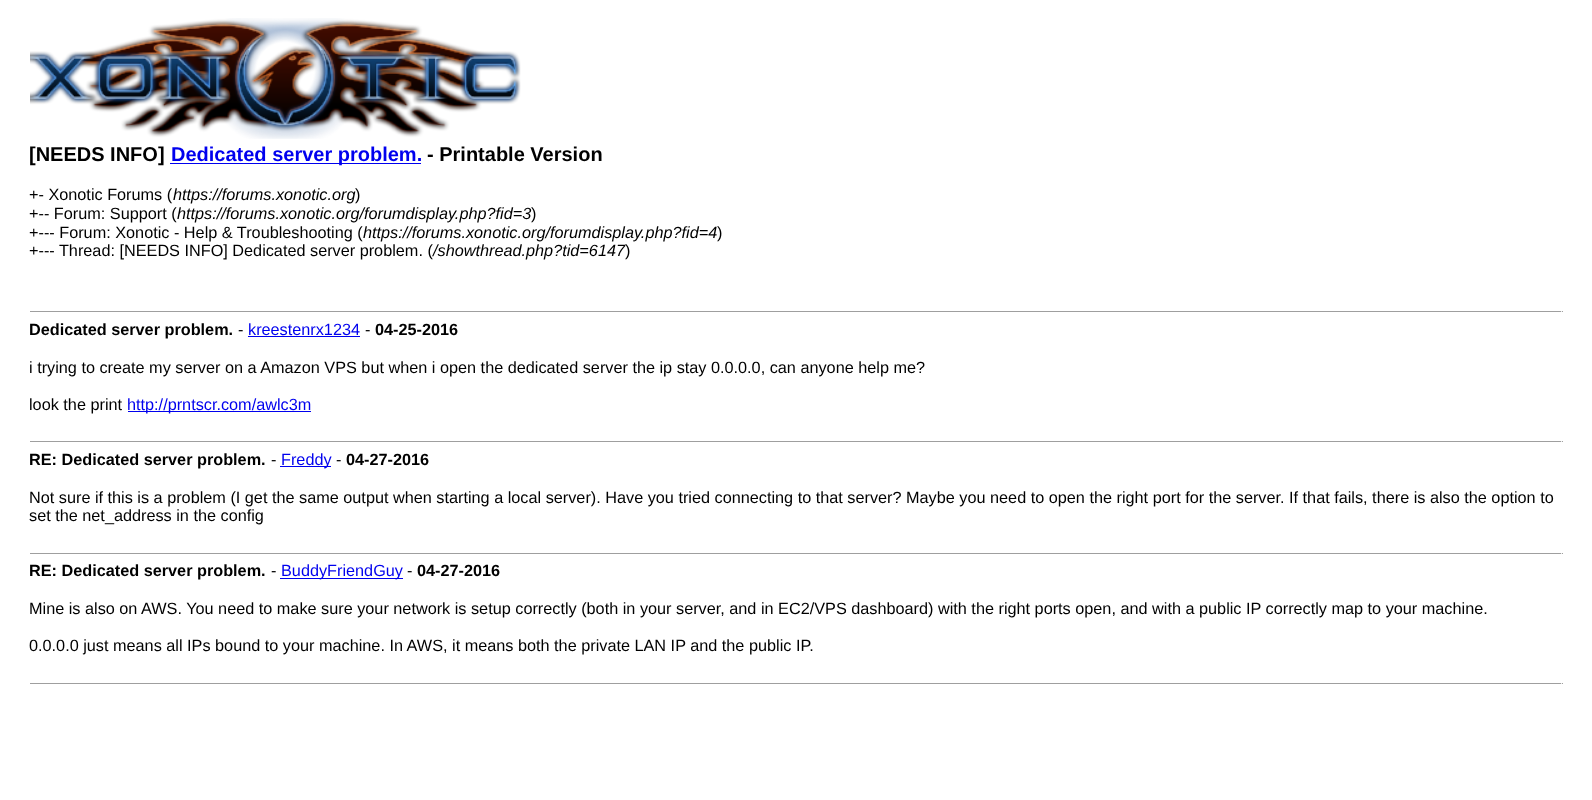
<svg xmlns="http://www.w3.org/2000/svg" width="1592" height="800">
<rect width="100%" height="100%" fill="#fff"/>
<image x="30" y="18" width="491" height="121" href="media/1.png"/>
<text x="29" y="161" style="font-family:Liberation Sans;font-size:20px;font-weight:bold;fill:#000">[NEEDS INFO]</text>
<rect x="170" y="163" width="251" height="1" fill="#00e"/>
<text x="171" y="161" style="font-family:Liberation Sans;font-size:20px;font-weight:bold;fill:#00e">Dedicated server problem.</text>
<text x="427" y="161" style="font-family:Liberation Sans;font-size:20px;font-weight:bold;fill:#000">- Printable Version</text>
<text x="29" y="200" style="font-family:Liberation Sans;font-size:16.25px;fill:#000">+- Xonotic Forums (</text>
<text x="173" y="200" style="font-family:Liberation Sans;font-size:16.25px;font-style:italic;fill:#000">https://forums.xonotic.org</text>
<text x="355" y="200" style="font-family:Liberation Sans;font-size:16.25px;fill:#000">)</text>
<text x="29" y="219" style="font-family:Liberation Sans;font-size:16.25px;fill:#000">+-- Forum: Support (</text>
<text x="177" y="219" style="font-family:Liberation Sans;font-size:16.25px;font-style:italic;fill:#000">https://forums.xonotic.org/forumdisplay.php?fid=3</text>
<text x="531" y="219" style="font-family:Liberation Sans;font-size:16.25px;fill:#000">)</text>
<text x="29" y="238" style="font-family:Liberation Sans;font-size:16.25px;fill:#000">+--- Forum: Xonotic - Help &amp; Troubleshooting (</text>
<text x="363" y="238" style="font-family:Liberation Sans;font-size:16.25px;font-style:italic;fill:#000">https://forums.xonotic.org/forumdisplay.php?fid=4</text>
<text x="717" y="238" style="font-family:Liberation Sans;font-size:16.25px;fill:#000">)</text>
<text x="29" y="256" style="font-family:Liberation Sans;font-size:16.25px;fill:#000">+--- Thread: [NEEDS INFO] Dedicated server problem. (</text>
<text x="433" y="256" style="font-family:Liberation Sans;font-size:16.25px;font-style:italic;fill:#000">/showthread.php?tid=6147</text>
<text x="625" y="256" style="font-family:Liberation Sans;font-size:16.25px;fill:#000">)</text>
<rect x="30" y="311" width="1533" height="1" fill="#9f9f9f"/>
<rect x="1561" y="311" width="1" height="1" fill="#eee"/>
<text x="29" y="335" style="font-family:Liberation Sans;font-size:16.25px;font-weight:bold;fill:#000">Dedicated server problem.</text>
<text x="238" y="335" style="font-family:Liberation Sans;font-size:16.25px;fill:#000">-</text>
<text x="248" y="335" style="font-family:Liberation Sans;font-size:16.25px;fill:#00e">kreestenrx1234</text>
<rect x="248" y="336" width="112" height="1" fill="#00e"/>
<text x="365" y="335" style="font-family:Liberation Sans;font-size:16.25px;fill:#000">-</text>
<text x="375" y="335" style="font-family:Liberation Sans;font-size:16.25px;font-weight:bold;fill:#000">04-25-2016</text>
<text x="29" y="373" style="font-family:Liberation Sans;font-size:16.25px;fill:#000">i trying to create my server on a Amazon VPS but when i open the dedicated server the ip stay 0.0.0.0, can anyone help me?</text>
<text x="29" y="410" style="font-family:Liberation Sans;font-size:16.25px;fill:#000">look the print</text>
<rect x="128" y="411" width="183" height="1" fill="#00e"/>
<text x="127" y="410" style="font-family:Liberation Sans;font-size:16.25px;fill:#00e">http://prntscr.com/awlc3m</text>
<rect x="30" y="441" width="1533" height="1" fill="#9f9f9f"/>
<rect x="1561" y="441" width="1" height="1" fill="#eee"/>
<text x="29" y="465" style="font-family:Liberation Sans;font-size:16.25px;font-weight:bold;fill:#000">RE: Dedicated server problem.</text>
<text x="271" y="465" style="font-family:Liberation Sans;font-size:16.25px;fill:#000">-</text>
<rect x="280" y="466" width="51" height="1" fill="#00e"/>
<text x="281" y="465" style="font-family:Liberation Sans;font-size:16.25px;fill:#00e">Freddy</text>
<text x="336" y="465" style="font-family:Liberation Sans;font-size:16.25px;fill:#000">-</text>
<text x="346" y="465" style="font-family:Liberation Sans;font-size:16.25px;font-weight:bold;fill:#000">04-27-2016</text>
<text x="29" y="503" style="font-family:Liberation Sans;font-size:16.25px;fill:#000">Not sure if this is a problem (I get the same output when starting a local server). Have you tried connecting to that server? Maybe you need to open the right port for the server. If that fails, there is also the option to</text>
<text x="29" y="521" style="font-family:Liberation Sans;font-size:16.25px;fill:#000">set the net_address in the config</text>
<rect x="30" y="553" width="1533" height="1" fill="#9f9f9f"/>
<rect x="1561" y="553" width="1" height="1" fill="#eee"/>
<text x="29" y="576" style="font-family:Liberation Sans;font-size:16.25px;font-weight:bold;fill:#000">RE: Dedicated server problem.</text>
<text x="271" y="576" style="font-family:Liberation Sans;font-size:16.25px;fill:#000">-</text>
<rect x="280" y="578" width="123" height="1" fill="#00e"/>
<text x="281" y="576" style="font-family:Liberation Sans;font-size:16.25px;fill:#00e">BuddyFriendGuy</text>
<text x="407" y="576" style="font-family:Liberation Sans;font-size:16.25px;fill:#000">-</text>
<text x="417" y="576" style="font-family:Liberation Sans;font-size:16.25px;font-weight:bold;fill:#000">04-27-2016</text>
<text x="29" y="614" style="font-family:Liberation Sans;font-size:16.25px;fill:#000">Mine is also on AWS. You need to make sure your network is setup correctly (both in your server, and in EC2/VPS dashboard) with the right ports open, and with a public IP correctly map to your machine.</text>
<text x="29" y="651" style="font-family:Liberation Sans;font-size:16.25px;fill:#000">0.0.0.0 just means all IPs bound to your machine. In AWS, it means both the private LAN IP and the public IP.</text>
<rect x="30" y="683" width="1533" height="1" fill="#9f9f9f"/>
<rect x="1561" y="683" width="1" height="1" fill="#eee"/>
</svg>
